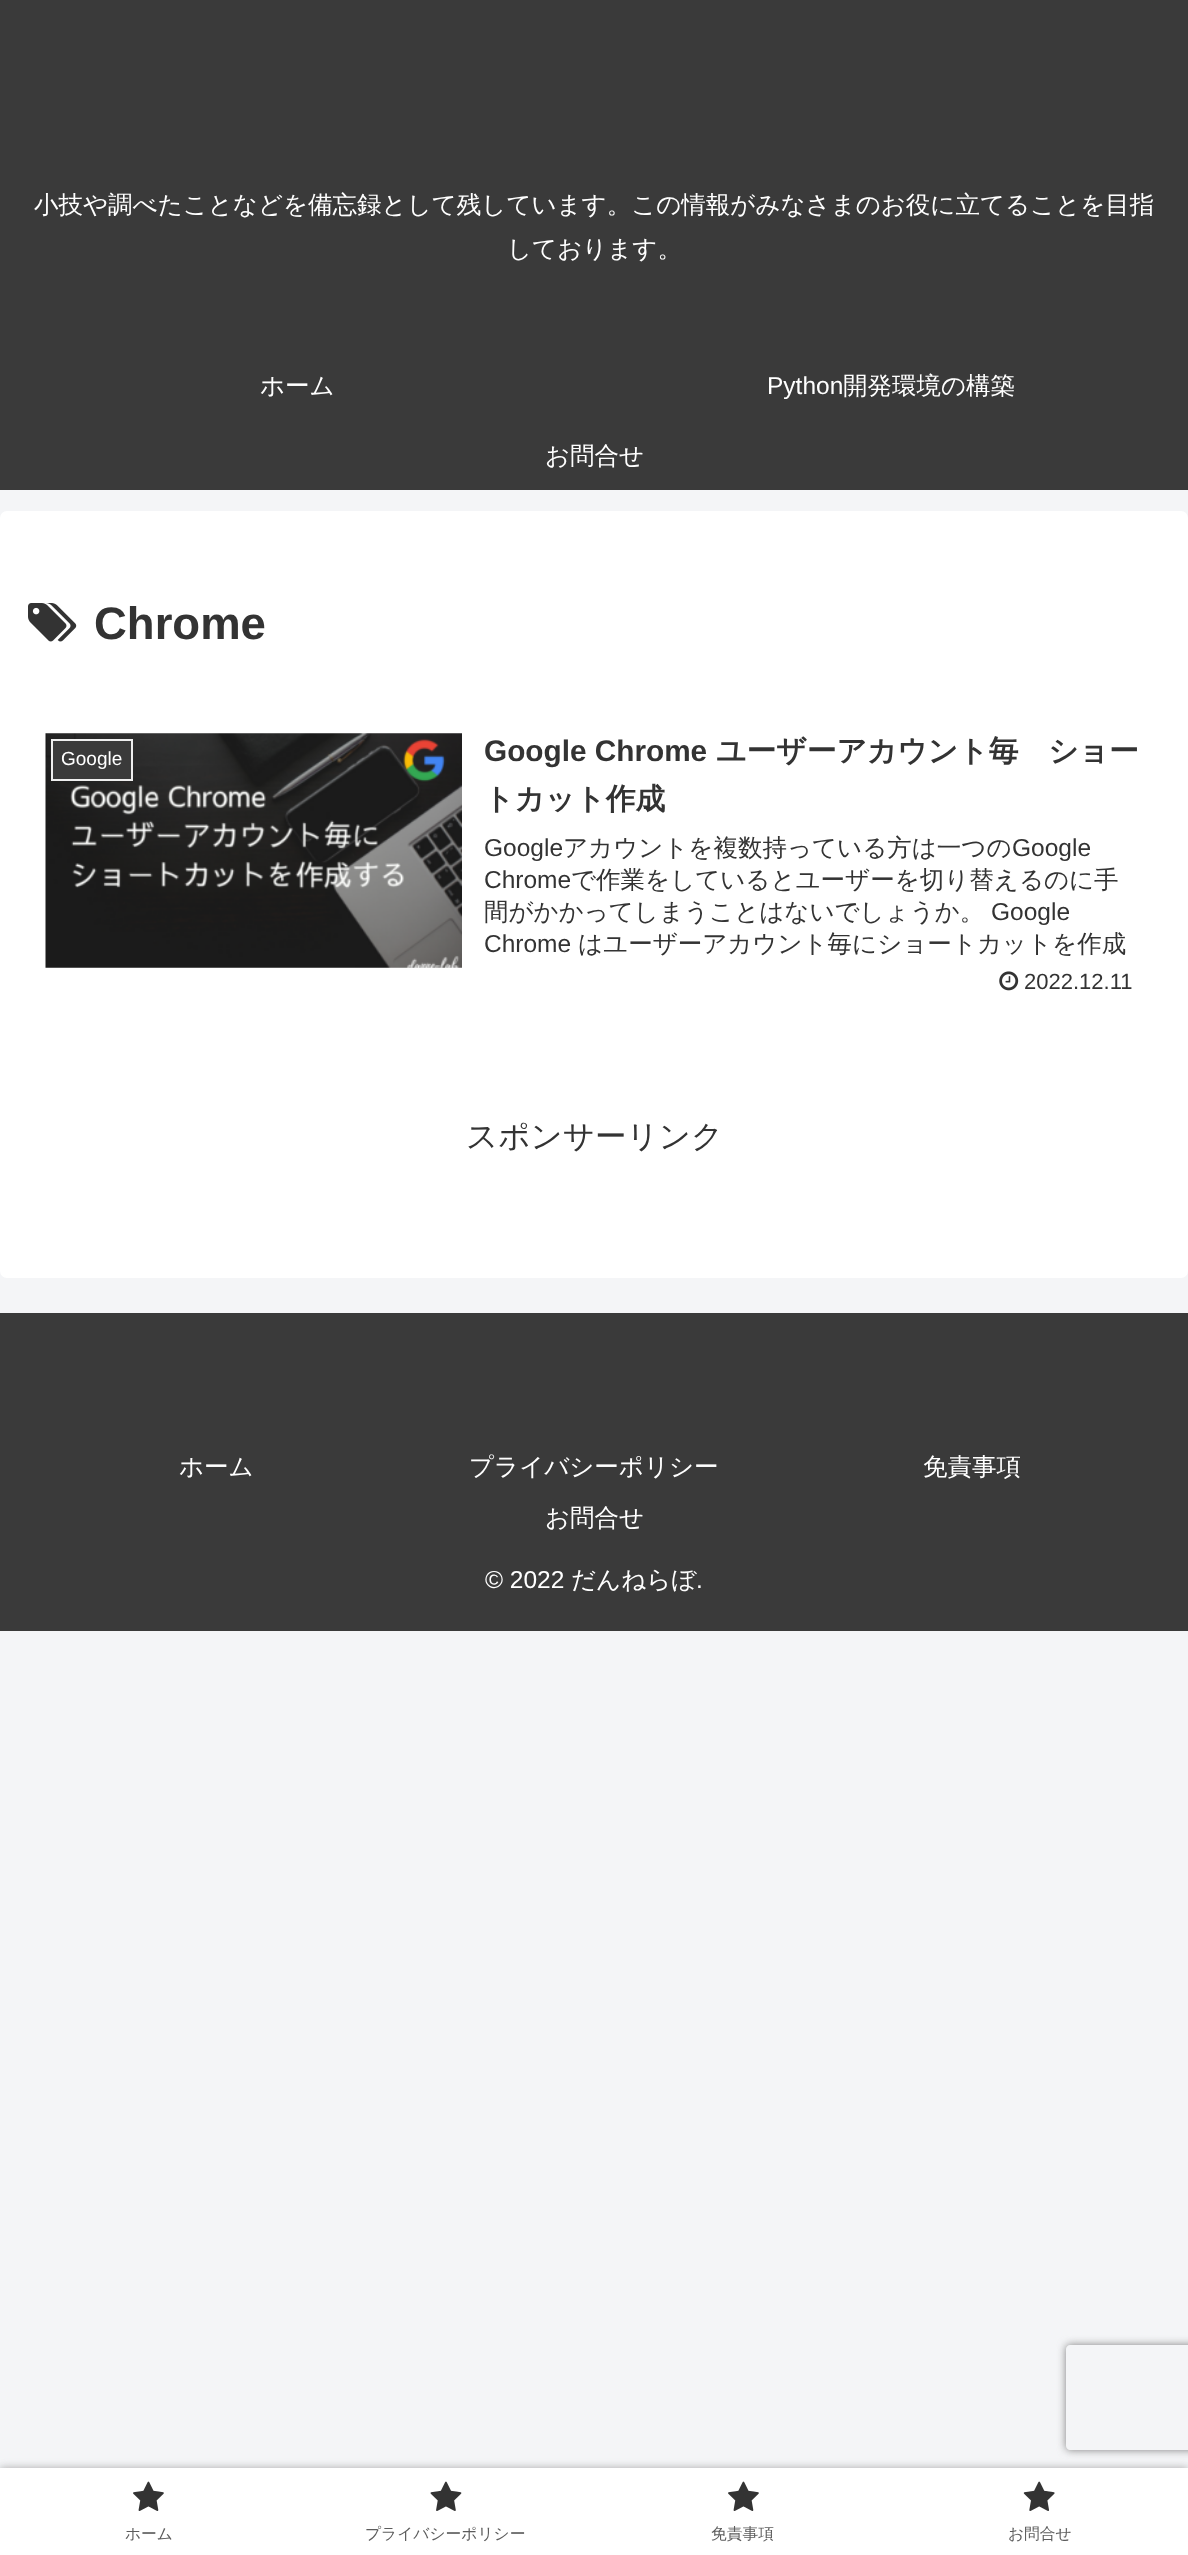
<svg xmlns="http://www.w3.org/2000/svg" width="1188" height="2555">
<defs>
<clipPath id="clip1"><path d="M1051 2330h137v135h-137zm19 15h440c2 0 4 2 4 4v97c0 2-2 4-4 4h-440c-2 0-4-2-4-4v-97c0-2 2-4 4-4z" clip-rule="evenodd"/></clipPath>
</defs>
<rect width="100%" height="100%" fill="#f4f5f7"/>
<rect width="1188" height="490" fill="#3a3a3a"/>
<text x="34" y="213" style="font-family:WenQuanYi Zen Hei;font-size:24.5px;font-weight:500;fill:#fff">小技や調べたことなどを備忘録として残しています。この情報がみなさまのお役に立てることを目指</text>
<text x="507" y="257" style="font-family:WenQuanYi Zen Hei;font-size:24.5px;font-weight:500;fill:#fff">しております。</text>
<text x="260" y="394" style="font-family:WenQuanYi Zen Hei;font-size:24.5px;font-weight:500;fill:#fff">ホーム</text>
<text x="767" y="394" style="font-family:Liberation Sans;font-size:24.5px;fill:#fff">Python</text>
<text x="843" y="394" style="font-family:WenQuanYi Zen Hei;font-size:24.5px;font-weight:500;fill:#fff">開発環境の構築</text>
<text x="545" y="464" style="font-family:WenQuanYi Zen Hei;font-size:24.5px;font-weight:500;fill:#fff">お問合せ</text>
<rect y="511" width="1188" height="767" rx="7" fill="#fff"/>
<image x="28" y="603" width="49" height="39" href="media/1.png"/>
<text x="94" y="639" style="font-family:Liberation Sans;font-size:45.5px;font-weight:bold;fill:#333">Chrome</text>
<image x="45" y="733" width="417" height="235" href="media/2.png"/>
<rect x="52" y="740" width="80" height="40" fill="#3a3a3a" stroke="#eee" stroke-width="2"/>
<text x="61" y="765" style="font-family:Liberation Sans;font-size:19px;fill:#fff">Google</text>
<text x="484" y="761" style="font-family:Liberation Sans;font-size:29.75px;font-weight:bold;fill:#333">Google Chrome</text>
<text x="716" y="761" style="font-family:WenQuanYi Zen Hei;font-size:29.75px;font-weight:bold;fill:#333">ユーザーアカウント毎　ショー</text>
<text x="484" y="809" style="font-family:WenQuanYi Zen Hei;font-size:29.75px;font-weight:bold;fill:#333">トカット作成</text>
<text x="484" y="856" style="font-family:Liberation Sans;font-size:24.5px;fill:#333">Google</text>
<text x="563" y="856" style="font-family:WenQuanYi Zen Hei;font-size:24.5px;font-weight:500;fill:#333">アカウントを複数持っている方は一つの</text>
<text x="1012" y="856" style="font-family:Liberation Sans;font-size:24.5px;fill:#333">Google</text>
<text x="484" y="888" style="font-family:Liberation Sans;font-size:24.5px;fill:#333">Chrome</text>
<text x="571" y="888" style="font-family:WenQuanYi Zen Hei;font-size:24.5px;font-weight:500;fill:#333">で作業をしているとユーザーを切り替えるのに手</text>
<text x="484" y="920" style="font-family:WenQuanYi Zen Hei;font-size:24.5px;font-weight:500;fill:#333">間がかかってしまうことはないでしょうか。</text>
<text x="991" y="920" style="font-family:Liberation Sans;font-size:24.5px;fill:#333">Google</text>
<text x="484" y="952" style="font-family:Liberation Sans;font-size:24.5px;fill:#333">Chrome</text>
<text x="578" y="952" style="font-family:WenQuanYi Zen Hei;font-size:24.5px;font-weight:500;fill:#333">はユーザーアカウント毎にショートカットを作成</text>
<image x="999" y="971" width="20" height="20" href="media/3.png"/>
<text x="1024" y="989" style="font-family:Liberation Sans;font-size:22px;fill:#333">2022.12.11</text>
<text x="466" y="1147" style="font-family:WenQuanYi Zen Hei;font-size:31.5px;font-weight:500;fill:#333">スポンサーリンク</text>
<rect y="1313" width="1188" height="318" fill="#3a3a3a"/>
<text x="179" y="1475" style="font-family:WenQuanYi Zen Hei;font-size:24.5px;font-weight:500;fill:#fff">ホーム</text>
<text x="469" y="1475" style="font-family:WenQuanYi Zen Hei;font-size:24.5px;font-weight:500;fill:#fff">プライバシーポリシー</text>
<text x="923" y="1475" style="font-family:WenQuanYi Zen Hei;font-size:24.5px;font-weight:500;fill:#fff">免責事項</text>
<text x="545" y="1526" style="font-family:WenQuanYi Zen Hei;font-size:24.5px;font-weight:500;fill:#fff">お問合せ</text>
<text x="485" y="1588" style="font-family:Liberation Sans;font-size:24.5px;fill:#fff">© 2022</text>
<text x="571" y="1588" style="font-family:WenQuanYi Zen Hei;font-size:24.5px;font-weight:500;fill:#fff">だんねらぼ</text>
<text x="696" y="1588" style="font-family:Liberation Sans;font-size:24.5px;fill:#fff">.</text>
<rect y="2468" width="1188" height="87" fill="#a9a9a9" filter="blur(4.5px)"/>
<rect y="2468" width="1188" height="87" fill="#fff"/>
<image x="133" y="2481" width="31" height="30" href="media/4.png"/>
<text x="125" y="2539" style="font-family:WenQuanYi Zen Hei;font-size:15.75px;font-weight:500;fill:#5c5c5c">ホーム</text>
<image x="430" y="2481" width="32" height="30" href="media/5.png"/>
<text x="365" y="2539" style="font-family:WenQuanYi Zen Hei;font-size:15.75px;font-weight:500;fill:#5c5c5c">プライバシーポリシー</text>
<image x="728" y="2481" width="31" height="30" href="media/4.png"/>
<text x="711" y="2539" style="font-family:WenQuanYi Zen Hei;font-size:15.75px;font-weight:500;fill:#5c5c5c">免責事項</text>
<image x="1023" y="2481" width="32" height="30" href="media/6.png"/>
<text x="1008" y="2539" style="font-family:WenQuanYi Zen Hei;font-size:15.75px;font-weight:500;fill:#5c5c5c">お問合せ</text>
<g clip-path="url(#clip1)">
<rect x="1066" y="2345" width="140" height="105" rx="4" fill="#808080" filter="blur(4.5px)"/>
</g>
</svg>
